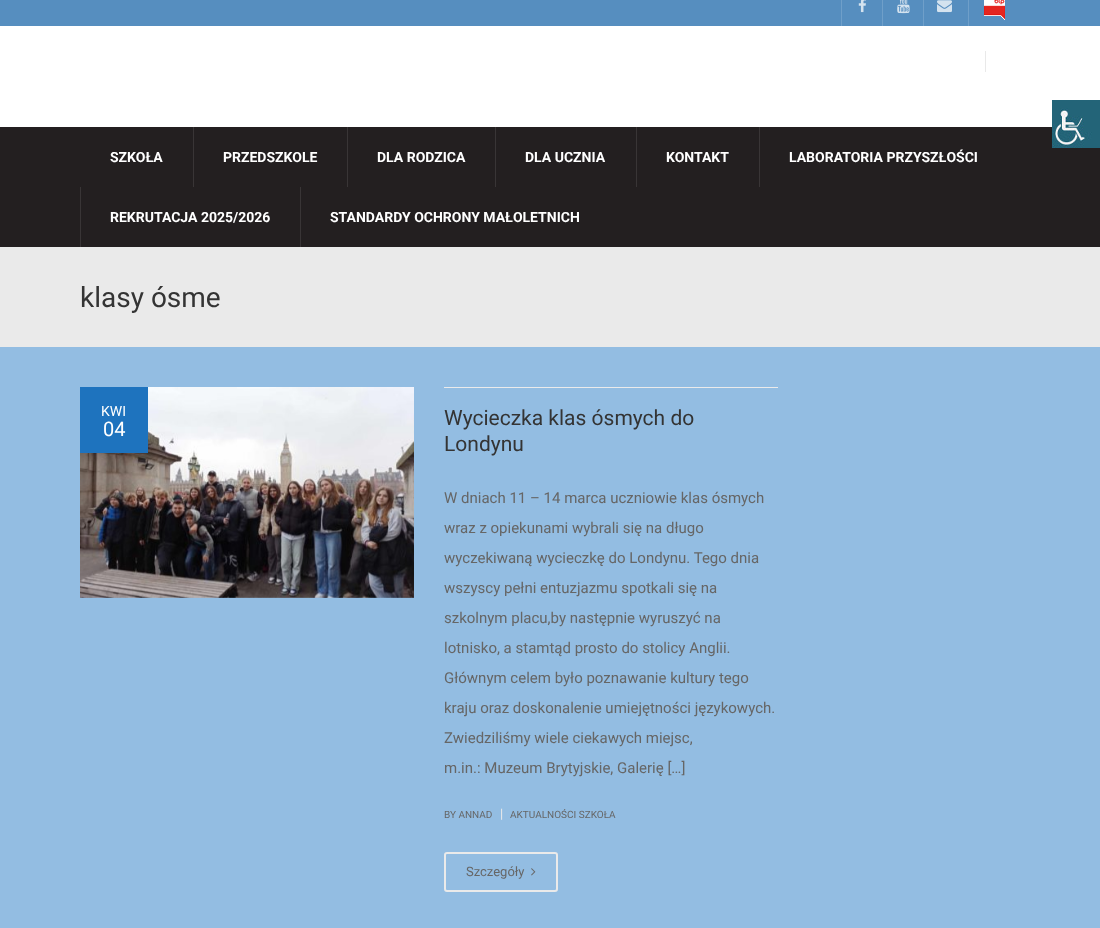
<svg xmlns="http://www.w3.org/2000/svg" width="1100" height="928">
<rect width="100%" height="100%" fill="#93bde2"/>
<rect y="26" width="1100" height="101" fill="#fff"/>
<rect y="127" width="1100" height="120" fill="#231f20"/>
<image x="1052" y="100" width="48" height="48" href="media/1.png"/>
<rect width="1100" height="26" fill="#568ebf"/>
<rect x="841" width="1" height="26" fill="#6f9fc9"/>
<image x="858" y="0" width="8" height="13" href="media/2.png"/>
<rect x="882" width="1" height="26" fill="#6f9fc9"/>
<image x="897" y="0" width="13" height="14" href="media/3.png"/>
<rect x="923" width="1" height="26" fill="#6f9fc9"/>
<image x="937" y="0" width="15" height="13" href="media/4.png"/>
<rect x="968" width="1" height="26" fill="#6f9fc9"/>
<image x="984" y="0" width="21" height="20" href="media/5.png"/>
<rect x="985" y="51" width="1" height="21" fill="#e9e9e9"/>
<text x="110" y="162" style="font-family:Roboto;font-size:14px;font-weight:bold;fill:#fff">SZKOŁA</text>
<rect x="193" y="127" width="1" height="60" fill="#393536"/>
<text x="223" y="162" style="font-family:Roboto;font-size:14px;font-weight:bold;fill:#fff">PRZEDSZKOLE</text>
<rect x="347" y="127" width="1" height="60" fill="#393536"/>
<text x="377" y="162" style="font-family:Roboto;font-size:14px;font-weight:bold;fill:#fff">DLA RODZICA</text>
<rect x="495" y="127" width="1" height="60" fill="#393536"/>
<text x="525" y="162" style="font-family:Roboto;font-size:14px;font-weight:bold;fill:#fff">DLA UCZNIA</text>
<rect x="636" y="127" width="1" height="60" fill="#393536"/>
<text x="666" y="162" style="font-family:Roboto;font-size:14px;font-weight:bold;fill:#fff">KONTAKT</text>
<rect x="759" y="127" width="1" height="60" fill="#393536"/>
<text x="789" y="162" style="font-family:Roboto;font-size:14px;font-weight:bold;fill:#fff">LABORATORIA PRZYSZŁOŚCI</text>
<rect x="80" y="187" width="1" height="60" fill="#393536"/>
<text x="110" y="222" style="font-family:Roboto;font-size:14px;font-weight:bold;fill:#fff">REKRUTACJA 2025/2026</text>
<rect x="300" y="187" width="1" height="60" fill="#393536"/>
<text x="330" y="222" style="font-family:Roboto;font-size:14px;font-weight:bold;fill:#fff">STANDARDY OCHRONY MAŁOLETNICH</text>
<rect y="247" width="1100" height="100" fill="#eaeaea"/>
<text x="80" y="307" style="font-family:Roboto;font-size:28px;fill:#343434">klasy ósme</text>
<image x="80" y="387" width="334" height="211" href="media/6.png"/>
<rect x="80" y="387" width="68" height="66" fill="#1e73be"/>
<text x="101" y="416" style="font-family:Roboto;font-size:14px;fill:#fff">KWI</text>
<text x="103" y="436" style="font-family:Roboto;font-size:20px;fill:#fff">04</text>
<rect x="444" y="387" width="334" height="1" fill="#eaeaea"/>
<text x="444" y="425" style="font-family:Roboto;font-size:21px;fill:#343434">Wycieczka klas ósmych do</text>
<text x="444" y="451" style="font-family:Roboto;font-size:21px;fill:#343434">Londynu</text>
<text x="444" y="503" style="font-family:Roboto;font-size:15px;fill:#666">W dniach 11 – 14 marca uczniowie klas ósmych</text>
<text x="444" y="533" style="font-family:Roboto;font-size:15px;fill:#666">wraz z opiekunami wybrali się na długo</text>
<text x="444" y="563" style="font-family:Roboto;font-size:15px;fill:#666">wyczekiwaną wycieczkę do Londynu. Tego dnia</text>
<text x="444" y="593" style="font-family:Roboto;font-size:15px;fill:#666">wszyscy pełni entuzjazmu spotkali się na</text>
<text x="444" y="623" style="font-family:Roboto;font-size:15px;fill:#666">szkolnym placu,by następnie wyruszyć na</text>
<text x="444" y="653" style="font-family:Roboto;font-size:15px;fill:#666">lotnisko, a stamtąd prosto do stolicy Anglii.</text>
<text x="444" y="683" style="font-family:Roboto;font-size:15px;fill:#666">Głównym celem było poznawanie kultury tego</text>
<text x="444" y="713" style="font-family:Roboto;font-size:15px;fill:#666">kraju oraz doskonalenie umiejętności językowych.</text>
<text x="444" y="743" style="font-family:Roboto;font-size:15px;fill:#666">Zwiedziliśmy wiele ciekawych miejsc,</text>
<text x="444" y="773" style="font-family:Roboto;font-size:15px;fill:#666">m.in.: Muzeum Brytyjskie, Galerię […]</text>
<text x="444" y="818" style="font-family:Roboto;font-size:10px;fill:#666">BY ANNAD</text>
<text x="500" y="818" style="font-family:Roboto;font-size:13px;fill:#eaeaea">|</text>
<text x="510" y="818" style="font-family:Roboto;font-size:10px;fill:#666">AKTUALNOŚCI SZKOŁA</text>
<rect x="445" y="853" width="112" height="38" rx="2" fill="none" stroke="#eaeaea" stroke-width="2"/>
<text x="466" y="876" style="font-family:Roboto;font-size:13px;fill:#666">Szczegóły</text>
<image x="531" y="868" width="5" height="8" href="media/7.png"/>
</svg>
